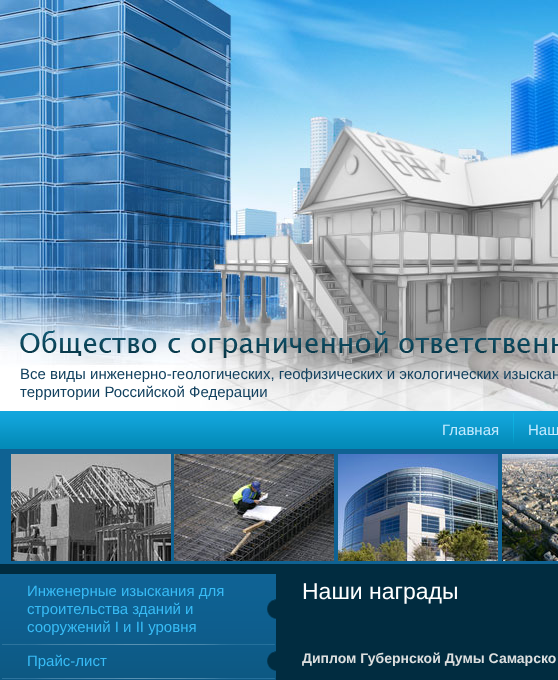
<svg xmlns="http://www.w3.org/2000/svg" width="558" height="680">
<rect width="100%" height="100%" fill="#012c40"/>
<image x="0" y="411" width="558" height="153" href="media/1.png"/>
<image x="0" y="0" width="558" height="411" href="media/2.png"/>
<image x="20" y="330" width="538" height="28" href="media/3.png"/>
<text x="20" y="379" style="font-family:Liberation Sans;font-size:15px;fill:#12415f">Все виды инженерно-геологических, геофизических и экологических изыскан</text>
<text x="20" y="397" style="font-family:Liberation Sans;font-size:15px;fill:#12415f">территории Российской Федерации</text>
<text x="442" y="435" style="font-family:Liberation Sans;font-size:15px;fill:#c5ebff">Главная</text>
<image x="513" y="413" width="1" height="31" href="media/4.png"/>
<text x="528" y="435" style="font-family:Liberation Sans;font-size:15px;fill:#c5ebff">Наш</text>
<image x="11" y="454" width="160" height="107" href="media/5.png"/>
<image x="174" y="454" width="160" height="107" href="media/6.png"/>
<image x="338" y="454" width="160" height="107" href="media/7.png"/>
<image x="502" y="454" width="56" height="107" href="media/8.png"/>
<image x="0" y="574" width="276" height="106" href="media/9.png"/>
<image x="267" y="599" width="9" height="20" href="media/10.png"/>
<text x="27" y="596" style="font-family:Liberation Sans;font-size:15px;fill:#38bcf6">Инженерные изыскания для</text>
<text x="27" y="614" style="font-family:Liberation Sans;font-size:15px;fill:#38bcf6">строительства зданий и</text>
<text x="27" y="632" style="font-family:Liberation Sans;font-size:15px;fill:#38bcf6">сооружений I и II уровня</text>
<image x="2" y="644" width="273" height="1" href="media/11.png"/>
<image x="267" y="651" width="9" height="20" href="media/12.png"/>
<text x="27" y="666" style="font-family:Liberation Sans;font-size:15px;fill:#38bcf6">Прайс-лист</text>
<image x="2" y="678" width="273" height="1" href="media/11.png"/>
<text x="302" y="599" style="font-family:Liberation Sans;font-size:23px;fill:#fff">Наши награды</text>
<text x="302" y="663" style="font-family:Liberation Sans;font-size:14px;font-weight:bold;fill:#dddfdf">Диплом Губернской Думы Самарско</text>
</svg>
